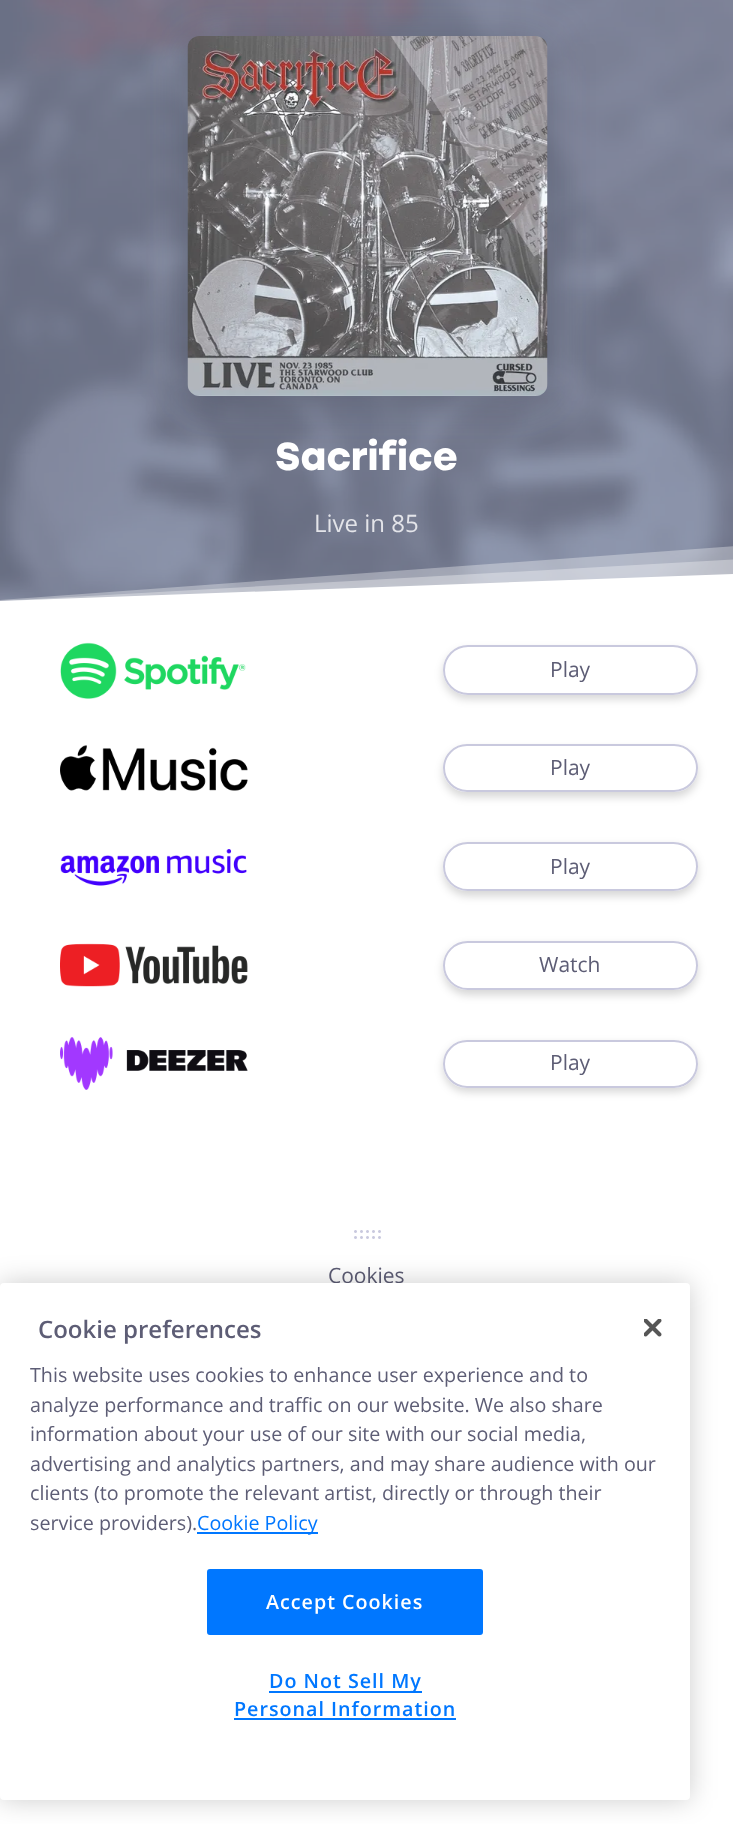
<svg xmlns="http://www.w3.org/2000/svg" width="733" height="1824">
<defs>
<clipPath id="clip1"><path d="M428 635h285v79h-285zm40 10h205c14 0 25 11 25 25c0 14-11 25-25 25h-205c-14 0-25-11-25-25c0-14 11-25 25-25z" clip-rule="evenodd"/></clipPath>
<clipPath id="clip2"><path d="M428 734h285v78h-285zm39 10h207c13.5 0 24 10.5 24 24c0 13.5-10.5 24-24 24h-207c-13.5 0-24-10.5-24-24c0-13.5 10.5-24 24-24z" clip-rule="evenodd"/></clipPath>
<clipPath id="clip3"><path d="M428 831h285v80h-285zm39.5 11h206c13.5 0 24.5 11 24.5 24.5c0 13.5-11 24.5-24.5 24.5h-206c-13.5 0-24.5-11-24.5-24.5c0-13.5 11-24.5 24.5-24.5z" clip-rule="evenodd"/></clipPath>
<clipPath id="clip4"><path d="M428 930h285v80h-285zm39.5 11h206c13.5 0 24.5 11 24.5 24.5c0 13.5-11 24.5-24.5 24.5h-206c-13.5 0-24.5-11-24.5-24.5c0-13.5 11-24.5 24.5-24.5z" clip-rule="evenodd"/></clipPath>
<clipPath id="clip5"><path d="M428 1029h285v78h-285zm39 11h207c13.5 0 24 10.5 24 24c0 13.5-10.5 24-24 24h-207c-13.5 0-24-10.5-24-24c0-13.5 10.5-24 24-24z" clip-rule="evenodd"/></clipPath>
</defs>
<rect width="100%" height="100%" fill="#fff"/>
<image x="0" y="0" width="733" height="601" href="media/1.png"/>
<rect x="188" y="41" width="360" height="360" rx="12" fill="#24283342" filter="blur(22.5px)"/>
<image x="187" y="36" width="361" height="360" href="media/2.png"/>
<text x="275" y="470" style="font-family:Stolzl;font-size:39px;font-weight:bold;fill:#fff">Sacrifice</text>
<text x="314" y="532" style="font-family:Open Sans;font-size:24px;fill:#e3e4e9">Live in 85</text>
<path d="M0 600l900-66v66l-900 58z" fill="#ffffff54"/>
<path d="M0 601l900-51v51l-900 46z" fill="#ffffff54"/>
<path d="M0 601l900-33v91l-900 10z" fill="#fff"/>
<image x="60" y="642" width="186" height="57" href="media/3.png"/>
<g clip-path="url(#clip1)">
<rect x="443" y="650" width="255" height="49" rx="24.5" fill="#00000029" filter="blur(4.5px)"/>
</g>
<rect x="444" y="646" width="253" height="48" rx="24" fill="none" stroke="#c9c9de" stroke-width="2"/>
<text x="550" y="677" style="font-family:Open Sans;font-size:21px;fill:#5d5d75">Play</text>
<image x="60" y="745" width="188" height="46" href="media/4.png"/>
<g clip-path="url(#clip2)">
<rect x="443" y="749" width="255" height="48" rx="24" fill="#00000029" filter="blur(4.5px)"/>
</g>
<rect x="444" y="745" width="253" height="46" rx="23" fill="none" stroke="#c9c9de" stroke-width="2"/>
<text x="550" y="775" style="font-family:Open Sans;font-size:21px;fill:#5d5d75">Play</text>
<image x="60" y="849" width="187" height="37" href="media/5.png"/>
<g clip-path="url(#clip3)">
<rect x="443" y="846" width="255" height="50" rx="25" fill="#00000029" filter="blur(4.5px)"/>
</g>
<rect x="444" y="843" width="253" height="47" rx="23.5" fill="none" stroke="#c9c9de" stroke-width="2"/>
<text x="550" y="874" style="font-family:Open Sans;font-size:21px;fill:#5d5d75">Play</text>
<image x="60" y="943" width="188" height="44" href="media/6.png"/>
<g clip-path="url(#clip4)">
<rect x="443" y="945" width="255" height="50" rx="25" fill="#00000029" filter="blur(4.5px)"/>
</g>
<rect x="444" y="942" width="253" height="47" rx="23.5" fill="none" stroke="#c9c9de" stroke-width="2"/>
<text x="539" y="972" style="font-family:Open Sans;font-size:21px;fill:#5d5d75">Watch</text>
<image x="60" y="1037" width="188" height="53" href="media/7.png"/>
<g clip-path="url(#clip5)">
<rect x="443" y="1044" width="255" height="48" rx="24" fill="#00000029" filter="blur(4.5px)"/>
</g>
<rect x="444" y="1041" width="253" height="46" rx="23" fill="none" stroke="#c9c9de" stroke-width="2"/>
<text x="550" y="1070" style="font-family:Open Sans;font-size:21px;fill:#5d5d75">Play</text>
<image x="354" y="1230" width="27" height="9" href="media/8.png"/>
<text x="328" y="1283" style="font-family:Open Sans;font-size:21px;fill:#5d5d75">Cookies</text>
<rect y="1283" width="690" height="517" rx="4" fill="#00000033" filter="blur(13.5px)"/>
<rect y="1283" width="690" height="517" rx="4" fill="#fff"/>
<text x="38" y="1338" style="font-family:Open Sans;font-size:24px;font-weight:600;fill:#5d5d75">Cookie preferences</text>
<text x="30" y="1382" style="font-family:Open Sans;font-size:19.7px;fill:#5d5d75">This website uses cookies to enhance user experience and to</text>
<text x="30" y="1412" style="font-family:Open Sans;font-size:19.7px;fill:#5d5d75">analyze performance and traffic on our website. We also share</text>
<text x="30" y="1441" style="font-family:Open Sans;font-size:19.7px;fill:#5d5d75">information about your use of our site with our social media,</text>
<text x="30" y="1471" style="font-family:Open Sans;font-size:19.7px;fill:#5d5d75">advertising and analytics partners, and may share audience with our</text>
<text x="30" y="1500" style="font-family:Open Sans;font-size:19.7px;fill:#5d5d75">clients (to promote the relevant artist, directly or through their</text>
<text x="30" y="1530" style="font-family:Open Sans;font-size:19.7px;fill:#5d5d75">service providers).</text>
<rect x="197" y="1532" width="121" height="2" fill="#07f"/>
<text x="197" y="1530" style="font-family:Open Sans;font-size:19.7px;fill:#07f">Cookie Policy</text>
<image x="644" y="1319" width="18" height="18" href="media/9.png"/>
<rect x="208" y="1570" width="274" height="64" rx="2" fill="#07f" stroke="#07f" stroke-width="2"/>
<text x="266" y="1609" style="font-family:Open Sans;font-size:19.7px;font-weight:600;letter-spacing:1px;fill:#fff">Accept Cookies</text>
<rect x="269" y="1691" width="153" height="2" fill="#07f"/>
<text x="269" y="1688" style="font-family:Open Sans;font-size:19.7px;font-weight:600;letter-spacing:1px;fill:#07f">Do Not Sell My</text>
<text x="234" y="1716" style="font-family:Open Sans;font-size:19.7px;font-weight:600;letter-spacing:1px;fill:#07f">Personal Information</text>
<rect x="234" y="1718" width="222" height="2" fill="#07f"/>
</svg>
